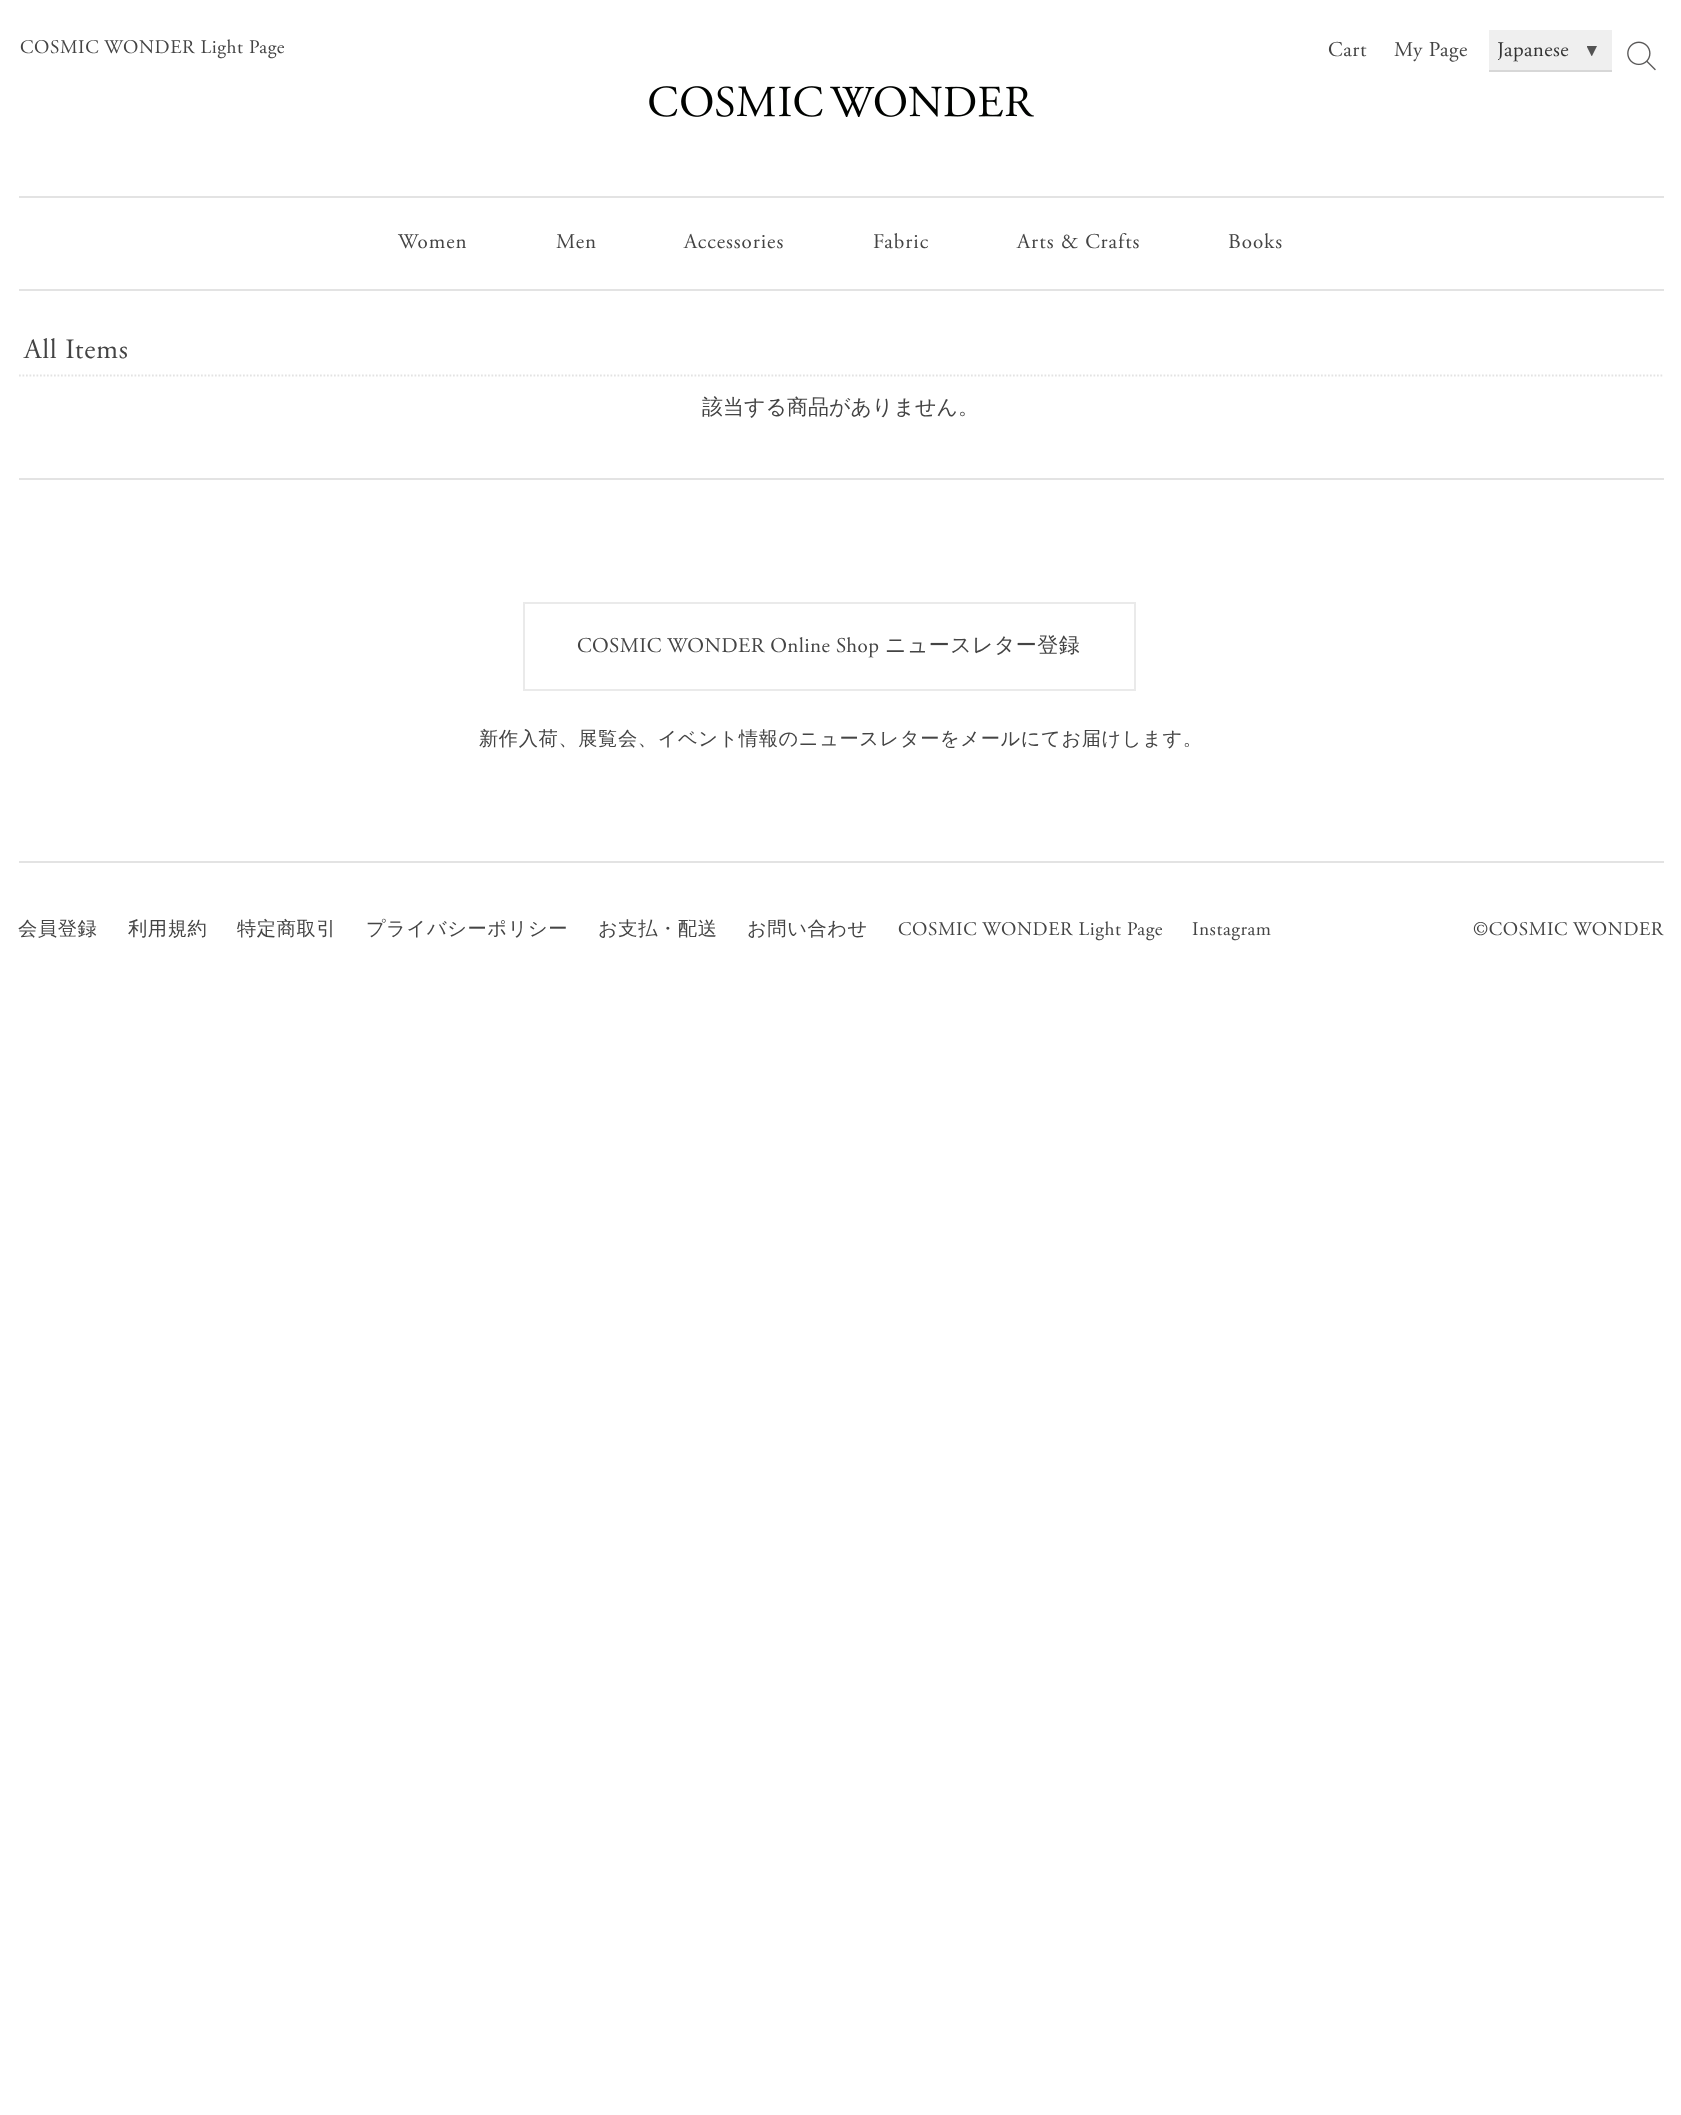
<svg xmlns="http://www.w3.org/2000/svg" width="1681" height="2115">
<defs>
<clipPath id="clip1"><rect x="1498" y="37" width="114" height="26"/></clipPath>
</defs>
<rect width="100%" height="100%" fill="#fff"/>
<text x="20" y="53" style="font-family:Adobe Garamond;font-size:19.25px;letter-spacing:0.6px;fill:#444">COSMIC WONDER Light Page</text>
<text x="1328" y="56" style="font-family:Adobe Garamond;font-size:21px;letter-spacing:0.6px;fill:#444">Cart</text>
<text x="1394" y="56" style="font-family:Adobe Garamond;font-size:21px;letter-spacing:0.6px;fill:#444">My Page</text>
<rect x="1489" y="30" width="123" height="40" fill="#efefef"/>
<rect x="1489" y="70" width="123" height="2" fill="#d7d7d7"/>
<g clip-path="url(#clip1)">
<text x="1497" y="56" style="font-family:Adobe Garamond;font-size:21px;letter-spacing:0.4px;fill:#333">Japanese</text>
</g>
<path d="M1587 46h10l-5 10h-.5l-4.5-9z" fill="#535353"/>
<image x="1627" y="41" width="29" height="30" href="media/1.png"/>
<image x="649" y="86" width="385" height="31" href="media/2.png"/>
<rect x="19" y="196" width="1645" height="2" fill="#e3e3e3"/>
<rect x="19" y="289" width="1645" height="2" fill="#e3e3e3"/>
<text x="398" y="248" style="font-family:Adobe Garamond;font-size:21px;letter-spacing:1px;fill:#444">Women</text>
<text x="556" y="248" style="font-family:Adobe Garamond;font-size:21px;letter-spacing:1px;fill:#444">Men</text>
<text x="684" y="248" style="font-family:Adobe Garamond;font-size:21px;letter-spacing:1px;fill:#444">Accessories</text>
<text x="873" y="248" style="font-family:Adobe Garamond;font-size:21px;letter-spacing:1px;fill:#444">Fabric</text>
<text x="1017" y="248" style="font-family:Adobe Garamond;font-size:21px;letter-spacing:1px;fill:#444">Arts &amp; Crafts</text>
<text x="1228" y="248" style="font-family:Adobe Garamond;font-size:21px;letter-spacing:1px;fill:#444">Books</text>
<path d="M19 375.5h1645" fill="none" stroke="#e3e3e3" stroke-width="1.8" stroke-dasharray="1.75 1.75"/>
<text x="24" y="358" style="font-family:Adobe Garamond;font-size:28px;letter-spacing:0.75px;fill:#444">All Items</text>
<text x="702" y="414" style="font-family:WenQuanYi Zen Hei;font-size:21px;font-weight:500;fill:#444">該当する商品がありません。</text>
<rect x="19" y="478" width="1645" height="2" fill="#e3e3e3"/>
<rect x="19" y="861" width="1645" height="2" fill="#e3e3e3"/>
<rect x="524" y="603" width="611" height="87" fill="none" stroke="#eaeaea" stroke-width="2"/>
<text x="577" y="652" style="font-family:Adobe Garamond;font-size:21px;letter-spacing:0.4px;fill:#444">COSMIC WONDER Online Shop</text>
<text x="885" y="652" style="font-family:WenQuanYi Zen Hei;font-size:21px;font-weight:500;letter-spacing:0.4px;fill:#444">ニュースレター登録</text>
<text x="479" y="745" style="font-family:WenQuanYi Zen Hei;font-size:19.25px;font-weight:500;letter-spacing:0.6px;fill:#444">新作入荷、展覧会、イベント情報のニュースレターをメールにてお届けします。</text>
<text x="18" y="935" style="font-family:WenQuanYi Zen Hei;font-size:19.25px;font-weight:500;letter-spacing:0.6px;fill:#444">会員登録</text>
<text x="128" y="935" style="font-family:WenQuanYi Zen Hei;font-size:19.25px;font-weight:500;letter-spacing:0.6px;fill:#444">利用規約</text>
<text x="237" y="935" style="font-family:WenQuanYi Zen Hei;font-size:19.25px;font-weight:500;letter-spacing:0.6px;fill:#444">特定商取引</text>
<text x="366" y="935" style="font-family:WenQuanYi Zen Hei;font-size:19.25px;font-weight:500;letter-spacing:0.6px;fill:#444">プライバシーポリシー</text>
<text x="598" y="935" style="font-family:WenQuanYi Zen Hei;font-size:19.25px;font-weight:500;letter-spacing:0.6px;fill:#444">お支払・配送</text>
<text x="747" y="935" style="font-family:WenQuanYi Zen Hei;font-size:19.25px;font-weight:500;letter-spacing:0.6px;fill:#444">お問い合わせ</text>
<text x="898" y="935" style="font-family:Adobe Garamond;font-size:19.25px;letter-spacing:0.6px;fill:#444">COSMIC WONDER Light Page</text>
<text x="1192" y="935" style="font-family:Adobe Garamond;font-size:19.25px;letter-spacing:0.6px;fill:#444">Instagram</text>
<text x="1473" y="935" style="font-family:Adobe Garamond;font-size:19.25px;letter-spacing:0.6px;fill:#444">©COSMIC WONDER</text>
</svg>
